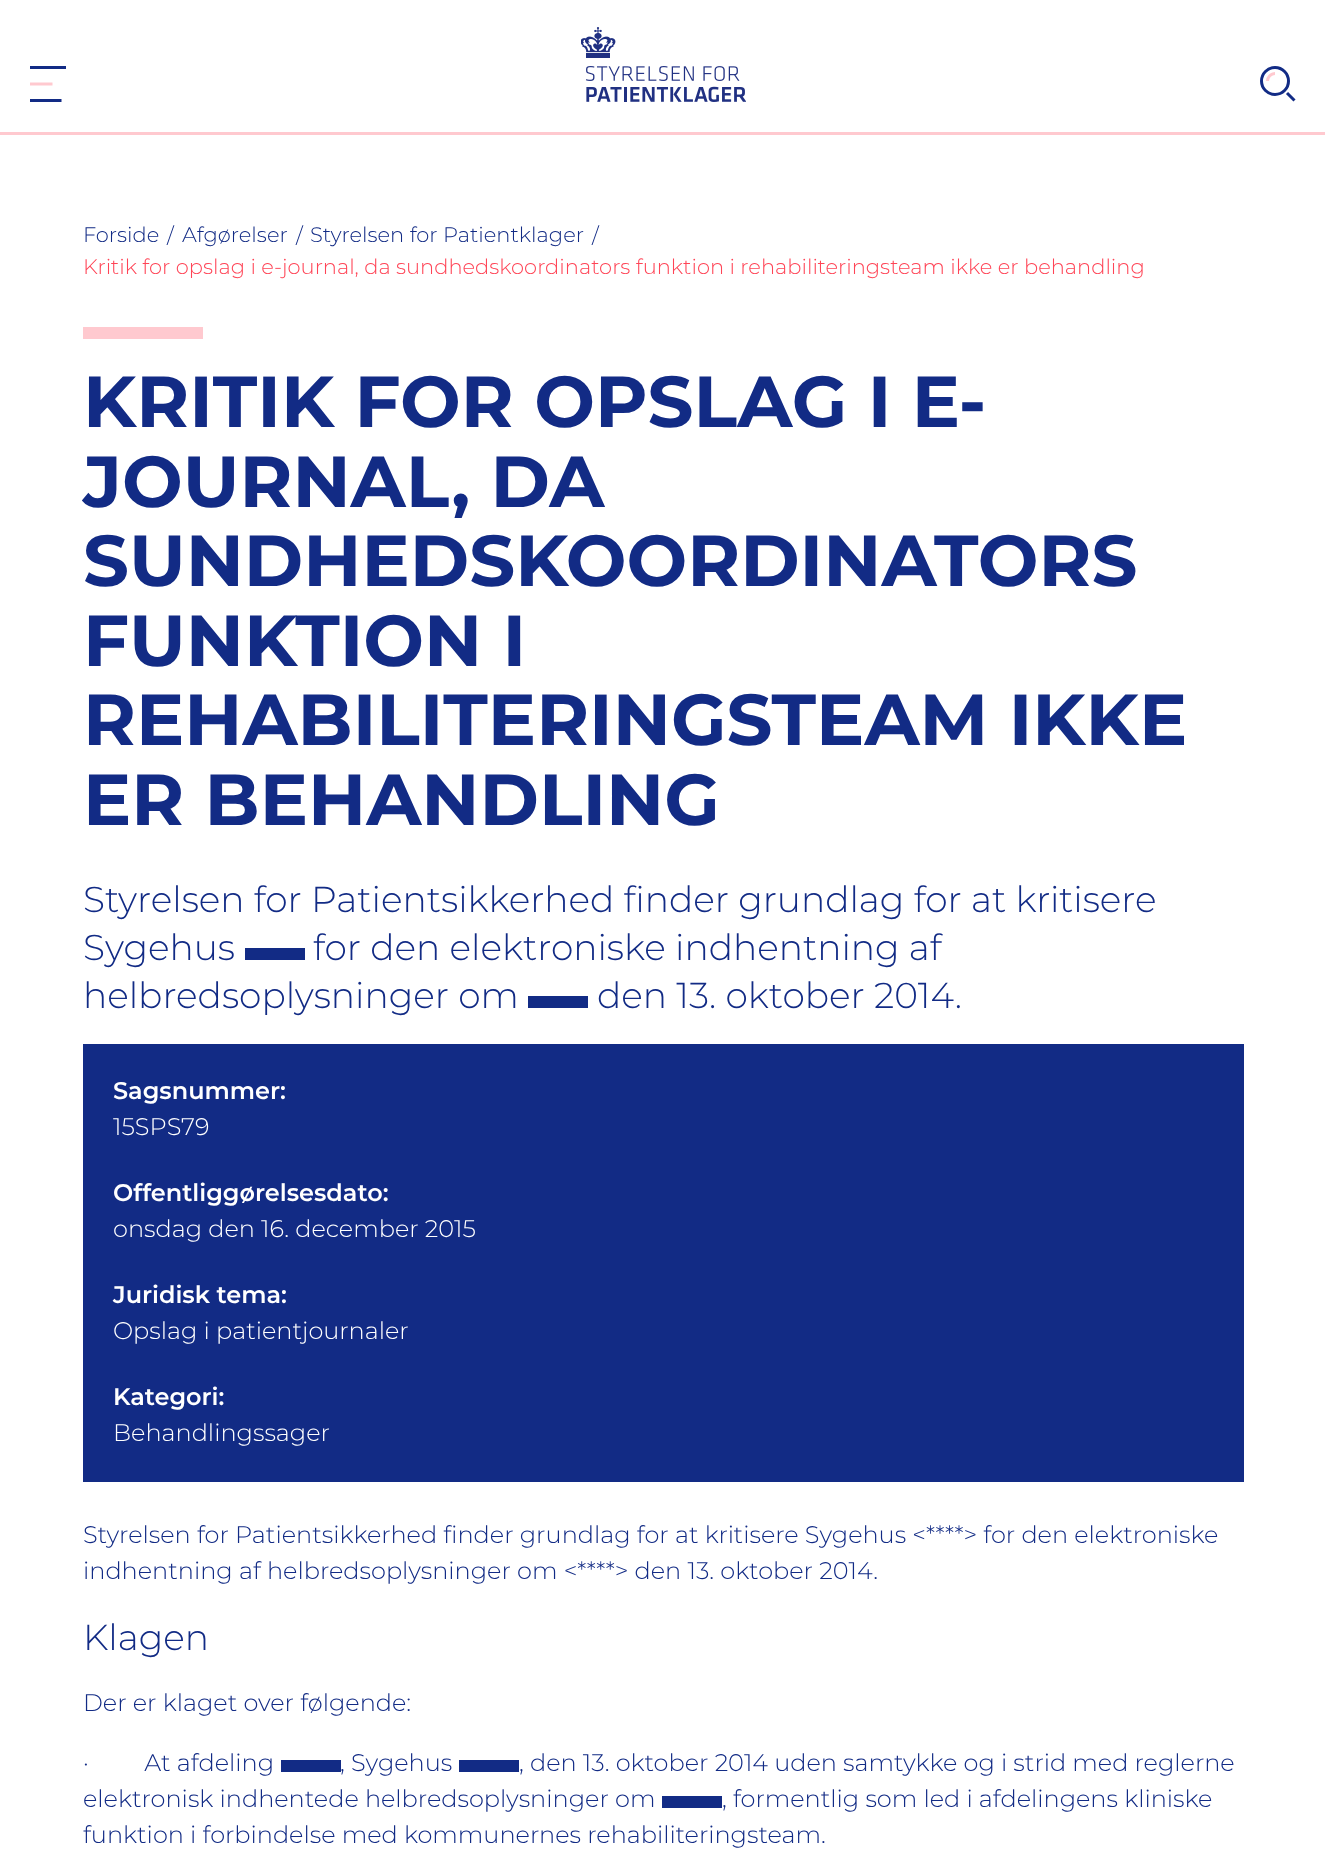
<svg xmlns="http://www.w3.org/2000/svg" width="1325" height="1859">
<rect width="100%" height="100%" fill="#fff"/>
<rect y="132" width="1325" height="3" fill="#ffc9cf"/>
<path d="M30 67.5h36m-36 33h31.5" fill="none" stroke="#122b85" stroke-width="3"/>
<path d="M30 84h22.5" fill="none" stroke="#ffc9cf" stroke-width="3"/>
<image x="581" y="27" width="165" height="75" href="media/1.png"/>
<circle cx="1275" cy="81" r="13.5" fill="none" stroke="#122b85" stroke-width="3"/>
<path d="M1267.5 81c0-4 3.5-7.5 7.5-7.5" fill="none" stroke="#ffc9cf" stroke-width="3"/>
<path d="M1287 93l7.5 7.5" fill="none" stroke="#122b85" stroke-width="3"/>
<text x="83" y="242" style="font-family:Montserrat;font-size:21px;font-weight:300;fill:#122b85">Forside</text>
<text x="167" y="243" style="font-family:Montserrat;font-size:21px;font-weight:300;fill:#122b85">/</text>
<text x="182" y="242" style="font-family:Montserrat;font-size:21px;font-weight:300;fill:#122b85">Afgørelser</text>
<text x="296" y="243" style="font-family:Montserrat;font-size:21px;font-weight:300;fill:#122b85">/</text>
<text x="310" y="242" style="font-family:Montserrat;font-size:21px;font-weight:300;fill:#122b85">Styrelsen for Patientklager</text>
<text x="592" y="243" style="font-family:Montserrat;font-size:21px;font-weight:300;fill:#122b85">/</text>
<text x="83" y="274" style="font-family:Montserrat;font-size:21px;font-weight:300;fill:#ff4456">Kritik for opslag i e-journal, da sundhedskoordinators funktion i rehabiliteringsteam ikke er behandling</text>
<rect x="83" y="327" width="120" height="12" fill="#ffc9cf"/>
<text x="83" y="427" style="font-family:Montserrat;font-size:72px;font-weight:bold;fill:#122b85">KRITIK FOR OPSLAG I E-</text>
<text x="83" y="507" style="font-family:Montserrat;font-size:72px;font-weight:bold;fill:#122b85">JOURNAL, DA</text>
<text x="83" y="586" style="font-family:Montserrat;font-size:72px;font-weight:bold;fill:#122b85">SUNDHEDSKOORDINATORS</text>
<text x="83" y="666" style="font-family:Montserrat;font-size:72px;font-weight:bold;fill:#122b85">FUNKTION I</text>
<text x="83" y="745" style="font-family:Montserrat;font-size:72px;font-weight:bold;fill:#122b85">REHABILITERINGSTEAM IKKE</text>
<text x="83" y="825" style="font-family:Montserrat;font-size:72px;font-weight:bold;fill:#122b85">ER BEHANDLING</text>
<text x="83" y="912" style="font-family:Montserrat;font-size:36px;font-weight:300;fill:#122b85">Styrelsen for Patientsikkerhed finder grundlag for at kritisere</text>
<text x="83" y="960" style="font-family:Montserrat;font-size:36px;font-weight:300;fill:#122b85">Sygehus</text>
<rect x="245" y="948" width="60" height="12" fill="#122b85"/>
<text x="313" y="960" style="font-family:Montserrat;font-size:36px;font-weight:300;fill:#122b85">for den elektroniske indhentning af</text>
<text x="83" y="1008" style="font-family:Montserrat;font-size:36px;font-weight:300;fill:#122b85">helbredsoplysninger om</text>
<rect x="528" y="996" width="60" height="12" fill="#122b85"/>
<text x="597" y="1008" style="font-family:Montserrat;font-size:36px;font-weight:300;fill:#122b85">den 13. oktober 2014.</text>
<rect x="83" y="1044" width="1161" height="438" fill="#122b85"/>
<text x="113" y="1099" style="font-family:Montserrat;font-size:24px;font-weight:600;fill:#fff">Sagsnummer:</text>
<text x="113" y="1135" style="font-family:Montserrat;font-size:24px;font-weight:300;fill:#fff">15SPS79</text>
<text x="113" y="1201" style="font-family:Montserrat;font-size:24px;font-weight:600;fill:#fff">Offentliggørelsesdato:</text>
<text x="113" y="1237" style="font-family:Montserrat;font-size:24px;font-weight:300;fill:#fff">onsdag den 16. december 2015</text>
<text x="113" y="1303" style="font-family:Montserrat;font-size:24px;font-weight:600;fill:#fff">Juridisk tema:</text>
<text x="113" y="1339" style="font-family:Montserrat;font-size:24px;font-weight:300;fill:#fff">Opslag i patientjournaler</text>
<text x="113" y="1405" style="font-family:Montserrat;font-size:24px;font-weight:600;fill:#fff">Kategori:</text>
<text x="113" y="1441" style="font-family:Montserrat;font-size:24px;font-weight:300;fill:#fff">Behandlingssager</text>
<text x="83" y="1543" style="font-family:Montserrat;font-size:24px;font-weight:300;fill:#122b85">Styrelsen for Patientsikkerhed finder grundlag for at kritisere Sygehus &lt;****&gt; for den elektroniske</text>
<text x="83" y="1579" style="font-family:Montserrat;font-size:24px;font-weight:300;fill:#122b85">indhentning af helbredsoplysninger om &lt;****&gt; den 13. oktober 2014.</text>
<text x="83" y="1650" style="font-family:Montserrat;font-size:36px;font-weight:300;fill:#122b85">Klagen</text>
<text x="83" y="1711" style="font-family:Montserrat;font-size:24px;font-weight:300;fill:#122b85">Der er klaget over følgende:</text>
<text x="83" y="1771" style="font-family:Montserrat;font-size:24px;font-weight:300;fill:#122b85" xml:space="preserve">·         At afdeling</text>
<rect x="281" y="1760" width="60" height="12" fill="#122b85"/>
<text x="340" y="1771" style="font-family:Montserrat;font-size:24px;font-weight:300;fill:#122b85">, Sygehus</text>
<rect x="459" y="1760" width="60" height="12" fill="#122b85"/>
<text x="519" y="1771" style="font-family:Montserrat;font-size:24px;font-weight:300;fill:#122b85">, den 13. oktober 2014 uden samtykke og i strid med reglerne</text>
<text x="83" y="1807" style="font-family:Montserrat;font-size:24px;font-weight:300;fill:#122b85">elektronisk indhentede helbredsoplysninger om</text>
<rect x="662" y="1796" width="60" height="12" fill="#122b85"/>
<text x="722" y="1807" style="font-family:Montserrat;font-size:24px;font-weight:300;fill:#122b85">, formentlig som led i afdelingens kliniske</text>
<text x="83" y="1843" style="font-family:Montserrat;font-size:24px;font-weight:300;fill:#122b85">funktion i forbindelse med kommunernes rehabiliteringsteam.</text>
</svg>
